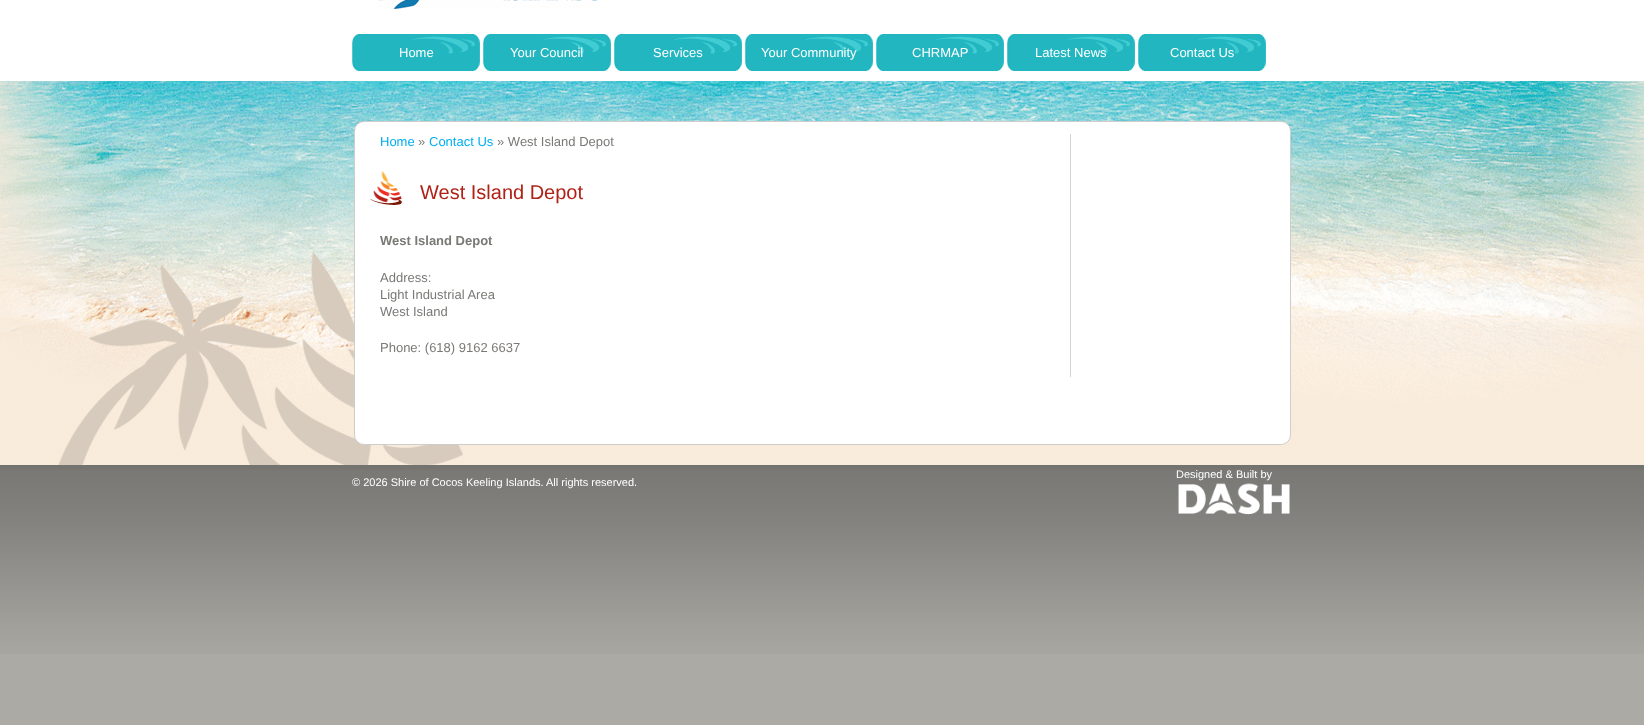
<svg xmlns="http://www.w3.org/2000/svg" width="1644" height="725">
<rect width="100%" height="100%" fill="#abaaa5"/>
<image x="0" y="81" width="1644" height="384" href="media/1.png"/>
<rect width="1644" height="81" fill="#fff"/>
<image x="378" y="0" width="220" height="9" href="media/2.png"/>
<image x="352" y="34" width="128" height="37" href="media/3.png"/>
<text x="399" y="57" style="font-family:Liberation Sans;font-size:13px;fill:#fff">Home</text>
<image x="483" y="34" width="128" height="37" href="media/3.png"/>
<text x="510" y="57" style="font-family:Liberation Sans;font-size:13px;fill:#fff">Your Council</text>
<image x="614" y="34" width="128" height="37" href="media/3.png"/>
<text x="653" y="57" style="font-family:Liberation Sans;font-size:13px;fill:#fff">Services</text>
<image x="745" y="34" width="128" height="37" href="media/3.png"/>
<text x="761" y="57" style="font-family:Liberation Sans;font-size:13px;fill:#fff">Your Community</text>
<image x="876" y="34" width="128" height="37" href="media/3.png"/>
<text x="912" y="57" style="font-family:Liberation Sans;font-size:13px;fill:#fff">CHRMAP</text>
<image x="1007" y="34" width="128" height="37" href="media/3.png"/>
<text x="1035" y="57" style="font-family:Liberation Sans;font-size:13px;fill:#fff">Latest News</text>
<image x="1138" y="34" width="128" height="37" href="media/3.png"/>
<text x="1170" y="57" style="font-family:Liberation Sans;font-size:13px;fill:#fff">Contact Us</text>
<rect x="354.5" y="121.5" width="936" height="323" rx="9.5" fill="#fff" stroke="#cecdc9"/>
<rect x="1070" y="134" width="1" height="243" fill="#d5d4d0"/>
<text x="380" y="146" style="font-family:Liberation Sans;font-size:13px;fill:#00aeef">Home</text>
<text x="418" y="146" style="font-family:Liberation Sans;font-size:13px;fill:#7a7976">»</text>
<text x="429" y="146" style="font-family:Liberation Sans;font-size:13px;fill:#00aeef">Contact Us</text>
<text x="497" y="146" style="font-family:Liberation Sans;font-size:13px;fill:#7a7976">» West Island Depot</text>
<image x="370" y="171" width="32" height="34" href="media/4.png"/>
<text x="420" y="199" style="font-family:Liberation Sans;font-size:20px;fill:#b12116">West Island Depot</text>
<text x="380" y="245" style="font-family:Liberation Sans;font-size:13px;font-weight:bold;fill:#7a7976">West Island Depot</text>
<text x="380" y="282" style="font-family:Liberation Sans;font-size:13px;fill:#7a7976">Address:</text>
<text x="380" y="299" style="font-family:Liberation Sans;font-size:13px;fill:#7a7976">Light Industrial Area</text>
<text x="380" y="316" style="font-family:Liberation Sans;font-size:13px;fill:#7a7976">West Island</text>
<text x="380" y="352" style="font-family:Liberation Sans;font-size:13px;fill:#7a7976">Phone: (618) 9162 6637</text>
<image x="0" y="465" width="1644" height="189" href="media/5.png"/>
<text x="1176" y="478" style="font-family:Liberation Sans;font-size:11px;fill:#fff">Designed &amp; Built by</text>
<image x="1178" y="483" width="112" height="32" href="media/6.png"/>
<text x="352" y="486" style="font-family:Liberation Sans;font-size:11px;fill:#fff">© 2026 Shire of Cocos Keeling Islands. All rights reserved.</text>
</svg>
